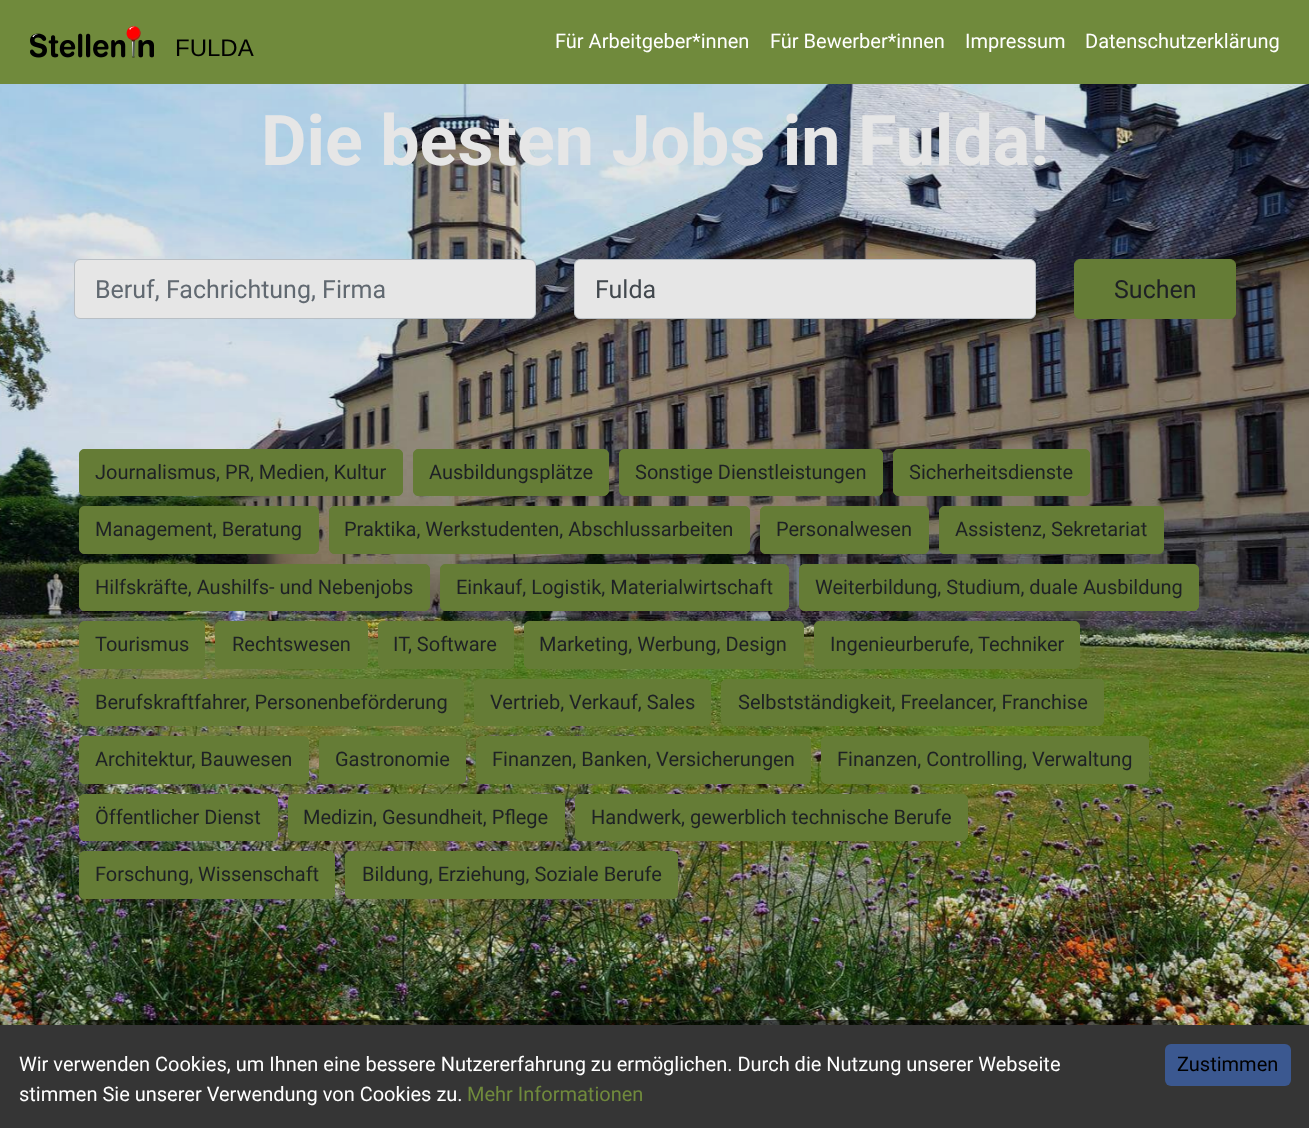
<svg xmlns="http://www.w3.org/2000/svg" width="1309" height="1128">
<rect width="100%" height="100%" fill="#fff"/>
<rect width="1309" height="84" fill="#708a3c"/>
<image x="30" y="26" width="124" height="32" href="media/1.png"/>
<text x="175" y="56" style="font-family:Liberation Sans;font-size:24px;fill:#000">FULDA</text>
<text x="555" y="48" style="font-family:Roboto;font-size:20px;fill:#fff">Für Arbeitgeber*innen</text>
<text x="770" y="48" style="font-family:Roboto;font-size:20px;fill:#fff">Für Bewerber*innen</text>
<text x="965" y="48" style="font-family:Roboto;font-size:20px;fill:#fff">Impressum</text>
<text x="1085" y="48" style="font-family:Roboto;font-size:20px;fill:#fff">Datenschutzerklärung</text>
<image x="0" y="84" width="1309" height="941" href="media/2.png"/>
<path d="M91 1020h1081c3.5 0 6 2.5 6 6v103h-1093v-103c0-3.5 2.5-6 6-6z" fill="#00000099"/>
<rect y="1025" width="1309" height="103" fill="#353535"/>
<text x="19" y="1071" style="font-family:Roboto;font-size:20px;fill:#fff">Wir verwenden Cookies, um Ihnen eine bessere Nutzererfahrung zu ermöglichen. Durch die Nutzung unserer Webseite</text>
<text x="19" y="1101" style="font-family:Roboto;font-size:20px;fill:#fff">stimmen Sie unserer Verwendung von Cookies zu.</text>
<text x="467" y="1101" style="font-family:Roboto;font-size:20px;fill:#708a3c">Mehr Informationen</text>
<rect x="1165" y="1044" width="126" height="42" rx="6" fill="#3b5890"/>
<text x="1177" y="1071" style="font-family:Roboto;font-size:20px;fill:#000">Zustimmen</text>
<text x="261" y="165" style="font-family:Roboto;font-size:70px;font-weight:bold;fill:#e6e6e6">Die besten Jobs in Fulda!</text>
<rect x="74.5" y="259.5" width="461" height="59" rx="5.5" fill="#e6e6e6" stroke="#b9bfc4"/>
<text x="95" y="298" style="font-family:Roboto;font-size:25px;fill:#616971">Beruf, Fachrichtung, Firma</text>
<rect x="574.5" y="259.5" width="461" height="59" rx="5.5" fill="#e6e6e6" stroke="#b9bfc4"/>
<text x="595" y="298" style="font-family:Roboto;font-size:25px;fill:#42484e">Fulda</text>
<rect x="1074.5" y="259.5" width="161" height="59" rx="5.5" fill="#657c36" stroke="#657c36"/>
<text x="1114" y="298" style="font-family:Roboto;font-size:25px;fill:#1e2125">Suchen</text>
<rect x="79.5" y="449.5" width="323" height="46" rx="4.5" fill="#657c36" stroke="#657c36"/>
<text x="95" y="479" style="font-family:Roboto;font-size:20px;fill:#1e2125">Journalismus, PR, Medien, Kultur</text>
<rect x="413.5" y="449.5" width="195" height="46" rx="4.5" fill="#657c36" stroke="#657c36"/>
<text x="429" y="479" style="font-family:Roboto;font-size:20px;fill:#1e2125">Ausbildungsplätze</text>
<rect x="619.5" y="449.5" width="263" height="46" rx="4.5" fill="#657c36" stroke="#657c36"/>
<text x="635" y="479" style="font-family:Roboto;font-size:20px;fill:#1e2125">Sonstige Dienstleistungen</text>
<rect x="893.5" y="449.5" width="196" height="46" rx="4.5" fill="#657c36" stroke="#657c36"/>
<text x="909" y="479" style="font-family:Roboto;font-size:20px;fill:#1e2125">Sicherheitsdienste</text>
<rect x="79.5" y="506.5" width="239" height="47" rx="4.5" fill="#657c36" stroke="#657c36"/>
<text x="95" y="536" style="font-family:Roboto;font-size:20px;fill:#1e2125">Management, Beratung</text>
<rect x="329.5" y="506.5" width="420" height="47" rx="4.5" fill="#657c36" stroke="#657c36"/>
<text x="344" y="536" style="font-family:Roboto;font-size:20px;fill:#1e2125">Praktika, Werkstudenten, Abschlussarbeiten</text>
<rect x="760.5" y="506.5" width="168" height="47" rx="4.5" fill="#657c36" stroke="#657c36"/>
<text x="776" y="536" style="font-family:Roboto;font-size:20px;fill:#1e2125">Personalwesen</text>
<rect x="939.5" y="506.5" width="224" height="47" rx="4.5" fill="#657c36" stroke="#657c36"/>
<text x="955" y="536" style="font-family:Roboto;font-size:20px;fill:#1e2125">Assistenz, Sekretariat</text>
<rect x="79.5" y="564.5" width="350" height="46" rx="4.5" fill="#657c36" stroke="#657c36"/>
<text x="95" y="594" style="font-family:Roboto;font-size:20px;fill:#1e2125">Hilfskräfte, Aushilfs- und Nebenjobs</text>
<rect x="440.5" y="564.5" width="348" height="46" rx="4.5" fill="#657c36" stroke="#657c36"/>
<text x="456" y="594" style="font-family:Roboto;font-size:20px;fill:#1e2125">Einkauf, Logistik, Materialwirtschaft</text>
<rect x="799.5" y="564.5" width="399" height="46" rx="4.5" fill="#657c36" stroke="#657c36"/>
<text x="815" y="594" style="font-family:Roboto;font-size:20px;fill:#1e2125">Weiterbildung, Studium, duale Ausbildung</text>
<rect x="79.5" y="621.5" width="125" height="47" rx="4.5" fill="#657c36" stroke="#657c36"/>
<text x="95" y="651" style="font-family:Roboto;font-size:20px;fill:#1e2125">Tourismus</text>
<rect x="215.5" y="621.5" width="152" height="47" rx="4.5" fill="#657c36" stroke="#657c36"/>
<text x="232" y="651" style="font-family:Roboto;font-size:20px;fill:#1e2125">Rechtswesen</text>
<rect x="378.5" y="621.5" width="135" height="47" rx="4.5" fill="#657c36" stroke="#657c36"/>
<text x="393" y="651" style="font-family:Roboto;font-size:20px;fill:#1e2125">IT, Software</text>
<rect x="524.5" y="621.5" width="279" height="47" rx="4.5" fill="#657c36" stroke="#657c36"/>
<text x="539" y="651" style="font-family:Roboto;font-size:20px;fill:#1e2125">Marketing, Werbung, Design</text>
<rect x="814.5" y="621.5" width="265" height="47" rx="4.5" fill="#657c36" stroke="#657c36"/>
<text x="830" y="651" style="font-family:Roboto;font-size:20px;fill:#1e2125">Ingenieurberufe, Techniker</text>
<rect x="79.5" y="679.5" width="384" height="46" rx="4.5" fill="#657c36" stroke="#657c36"/>
<text x="95" y="709" style="font-family:Roboto;font-size:20px;fill:#1e2125">Berufskraftfahrer, Personenbeförderung</text>
<rect x="474.5" y="679.5" width="236" height="46" rx="4.5" fill="#657c36" stroke="#657c36"/>
<text x="490" y="709" style="font-family:Roboto;font-size:20px;fill:#1e2125">Vertrieb, Verkauf, Sales</text>
<rect x="721.5" y="679.5" width="382" height="46" rx="4.5" fill="#657c36" stroke="#657c36"/>
<text x="738" y="709" style="font-family:Roboto;font-size:20px;fill:#1e2125">Selbstständigkeit, Freelancer, Franchise</text>
<rect x="79.5" y="736.5" width="229" height="47" rx="4.5" fill="#657c36" stroke="#657c36"/>
<text x="95" y="766" style="font-family:Roboto;font-size:20px;fill:#1e2125">Architektur, Bauwesen</text>
<rect x="319.5" y="736.5" width="146" height="47" rx="4.5" fill="#657c36" stroke="#657c36"/>
<text x="335" y="766" style="font-family:Roboto;font-size:20px;fill:#1e2125">Gastronomie</text>
<rect x="476.5" y="736.5" width="334" height="47" rx="4.5" fill="#657c36" stroke="#657c36"/>
<text x="492" y="766" style="font-family:Roboto;font-size:20px;fill:#1e2125">Finanzen, Banken, Versicherungen</text>
<rect x="821.5" y="736.5" width="327" height="47" rx="4.5" fill="#657c36" stroke="#657c36"/>
<text x="837" y="766" style="font-family:Roboto;font-size:20px;fill:#1e2125">Finanzen, Controlling, Verwaltung</text>
<rect x="79.5" y="794.5" width="198" height="46" rx="4.5" fill="#657c36" stroke="#657c36"/>
<text x="95" y="824" style="font-family:Roboto;font-size:20px;fill:#1e2125">Öffentlicher Dienst</text>
<rect x="288.5" y="794.5" width="276" height="46" rx="4.5" fill="#657c36" stroke="#657c36"/>
<text x="303" y="824" style="font-family:Roboto;font-size:20px;fill:#1e2125">Medizin, Gesundheit, Pflege</text>
<rect x="575.5" y="794.5" width="392" height="46" rx="4.5" fill="#657c36" stroke="#657c36"/>
<text x="591" y="824" style="font-family:Roboto;font-size:20px;fill:#1e2125">Handwerk, gewerblich technische Berufe</text>
<rect x="79.5" y="851.5" width="255" height="47" rx="4.5" fill="#657c36" stroke="#657c36"/>
<text x="95" y="881" style="font-family:Roboto;font-size:20px;fill:#1e2125">Forschung, Wissenschaft</text>
<rect x="345.5" y="851.5" width="332" height="47" rx="4.5" fill="#657c36" stroke="#657c36"/>
<text x="362" y="881" style="font-family:Roboto;font-size:20px;fill:#1e2125">Bildung, Erziehung, Soziale Berufe</text>
</svg>
